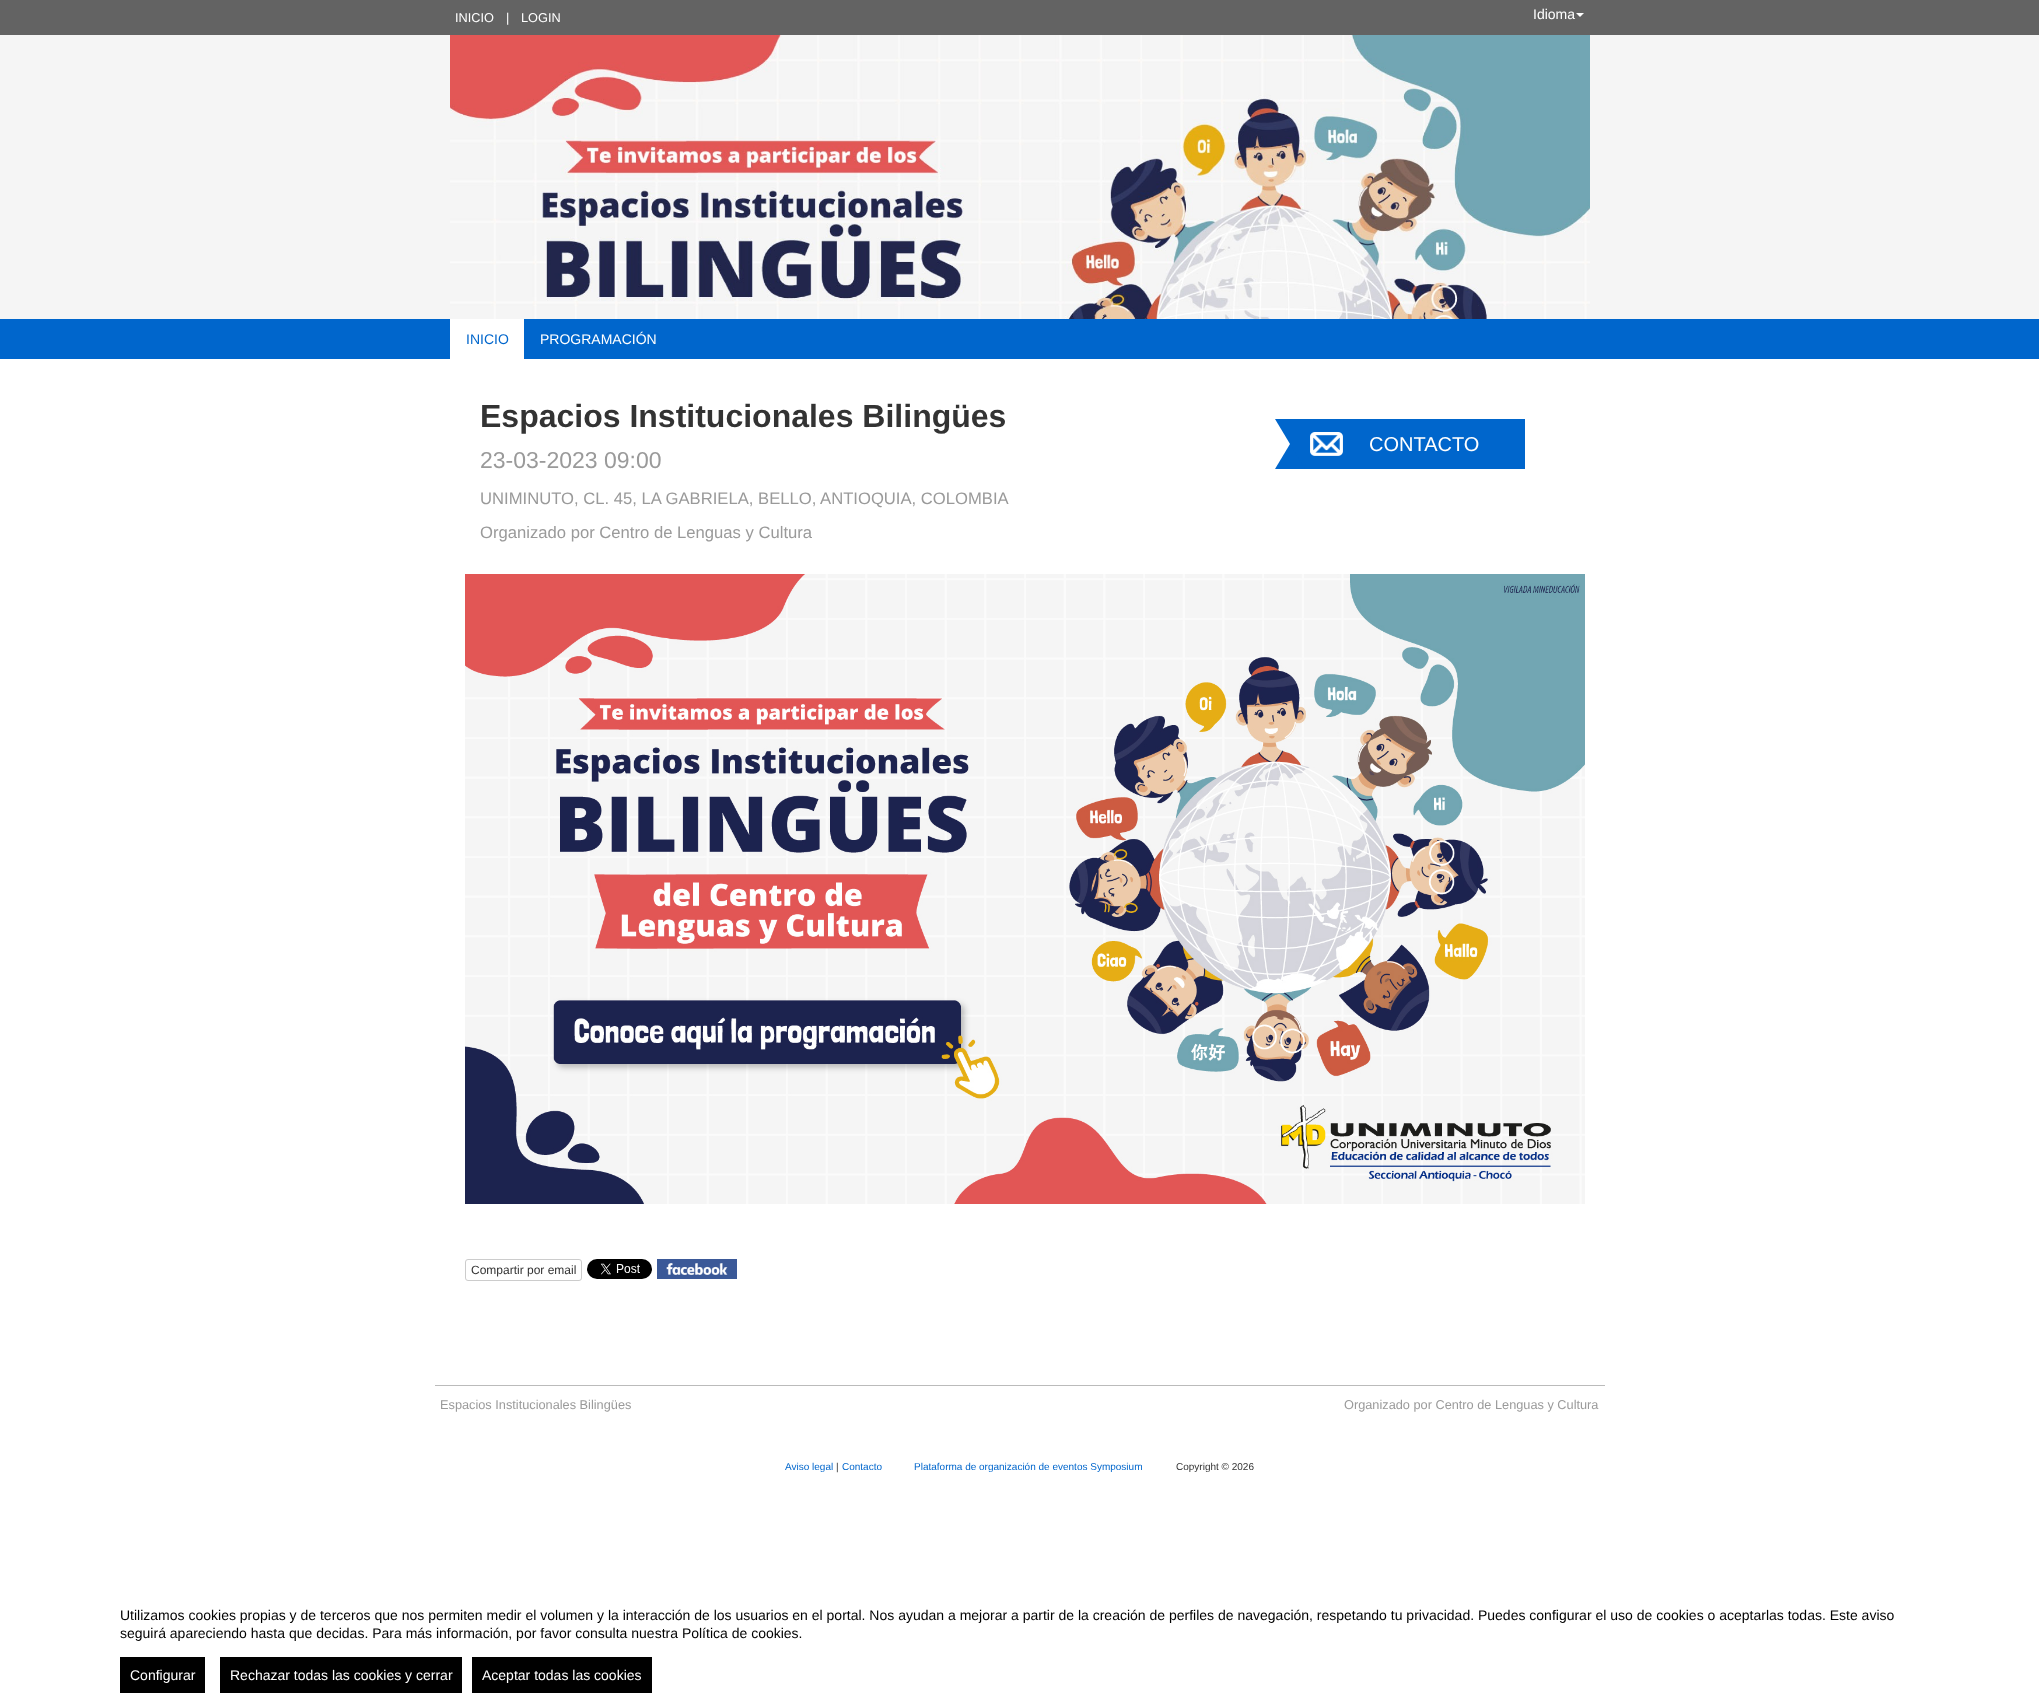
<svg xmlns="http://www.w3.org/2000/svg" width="2039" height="1708">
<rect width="100%" height="100%" fill="#fff"/>
<rect width="2039" height="35" fill="#636363"/>
<text x="455" y="22" style="font-family:Liberation Sans;font-size:12.75px;fill:#fff">INICIO</text>
<text x="506" y="22" style="font-family:Liberation Sans;font-size:12.75px;fill:#fff">|</text>
<text x="521" y="22" style="font-family:Liberation Sans;font-size:12.75px;fill:#fff">LOGIN</text>
<text x="1533" y="19" style="font-family:Liberation Sans;font-size:14px;fill:#fff">Idioma</text>
<path d="M1576 13h8l-4 4z" fill="#fff"/>
<rect y="35" width="2039" height="284" fill="#f5f5f5"/>
<image x="450" y="35" width="1140" height="284" href="media/1.png"/>
<rect y="319" width="2039" height="40" fill="#06c"/>
<rect x="450" y="319" width="74" height="40" fill="#fff"/>
<text x="466" y="344" style="font-family:Liberation Sans;font-size:14px;fill:#06c">INICIO</text>
<text x="540" y="344" style="font-family:Liberation Sans;font-size:14px;fill:#fff">PROGRAMACIÓN</text>
<text x="480" y="427" style="font-family:Liberation Sans;font-size:32px;font-weight:bold;fill:#333">Espacios Institucionales Bilingües</text>
<text x="480" y="468" style="font-family:Liberation Sans;font-size:23px;fill:#9a9a9a">23-03-2023 09:00</text>
<text x="480" y="504" style="font-family:Liberation Sans;font-size:16.65px;fill:#9a9a9a">UNIMINUTO, CL. 45, LA GABRIELA, BELLO, ANTIOQUIA, COLOMBIA</text>
<text x="480" y="538" style="font-family:Liberation Sans;font-size:16.65px;fill:#9a9a9a">Organizado por Centro de Lenguas y Cultura</text>
<rect x="1305" y="419" width="220" height="50" fill="#06c"/>
<path d="M1275 419h30l-15 25z" fill="#06c"/>
<rect x="1290" y="419" width="15" height="50" fill="#06c"/>
<path d="M1305 469h-30l15-25z" fill="#06c"/>
<image x="1310" y="432" width="33" height="24" href="media/2.png"/>
<text x="1369" y="451" style="font-family:Liberation Sans;font-size:20px;fill:#fff">CONTACTO</text>
<image x="465" y="574" width="1120" height="630" href="media/3.png"/>
<rect x="465.5" y="1259.5" width="116" height="21" rx="2.5" fill="none" stroke="#ccc"/>
<text x="471" y="1274" style="font-family:Liberation Sans;font-size:12px;fill:#333">Compartir por email</text>
<image x="587" y="1259" width="65" height="20" href="media/4.png"/>
<image x="657" y="1259" width="80" height="20" href="media/5.png"/>
<rect x="435" y="1385" width="1170" height="1" fill="#bbb"/>
<text x="440" y="1409" style="font-family:Liberation Sans;font-size:12.75px;fill:#9a9a9a">Espacios Institucionales Bilingües</text>
<text x="1344" y="1409" style="font-family:Liberation Sans;font-size:12.75px;fill:#9a9a9a">Organizado por Centro de Lenguas y Cultura</text>
<text x="785" y="1470" style="font-family:Liberation Sans;font-size:10px;fill:#06c">Aviso legal</text>
<text x="836" y="1470" style="font-family:Liberation Sans;font-size:10px;fill:#333">|</text>
<text x="842" y="1470" style="font-family:Liberation Sans;font-size:10px;fill:#06c">Contacto</text>
<text x="914" y="1470" style="font-family:Liberation Sans;font-size:10px;fill:#06c">Plataforma de organización de eventos Symposium</text>
<text x="1176" y="1470" style="font-family:Liberation Sans;font-size:10px;fill:#333">Copyright © 2026</text>
<text x="120" y="1620" style="font-family:Liberation Sans;font-size:14px;fill:#000">Utilizamos cookies propias y de terceros que nos permiten medir el volumen y la interacción de los usuarios en el portal. Nos ayudan a mejorar a partir de la creación de perfiles de navegación, respetando tu privacidad. Puedes configurar el uso de cookies o aceptarlas todas. Este aviso</text>
<text x="120" y="1638" style="font-family:Liberation Sans;font-size:14px;fill:#000">seguirá apareciendo hasta que decidas. Para más información, por favor consulta nuestra Política de cookies.</text>
<rect x="120" y="1657" width="85" height="36" fill="#000"/>
<text x="130" y="1680" style="font-family:Liberation Sans;font-size:14px;fill:#fff">Configurar</text>
<rect x="220" y="1657" width="242" height="36" fill="#000"/>
<text x="230" y="1680" style="font-family:Liberation Sans;font-size:14px;fill:#fff">Rechazar todas las cookies y cerrar</text>
<rect x="472" y="1657" width="180" height="36" fill="#000"/>
<text x="482" y="1680" style="font-family:Liberation Sans;font-size:14px;fill:#fff">Aceptar todas las cookies</text>
</svg>
